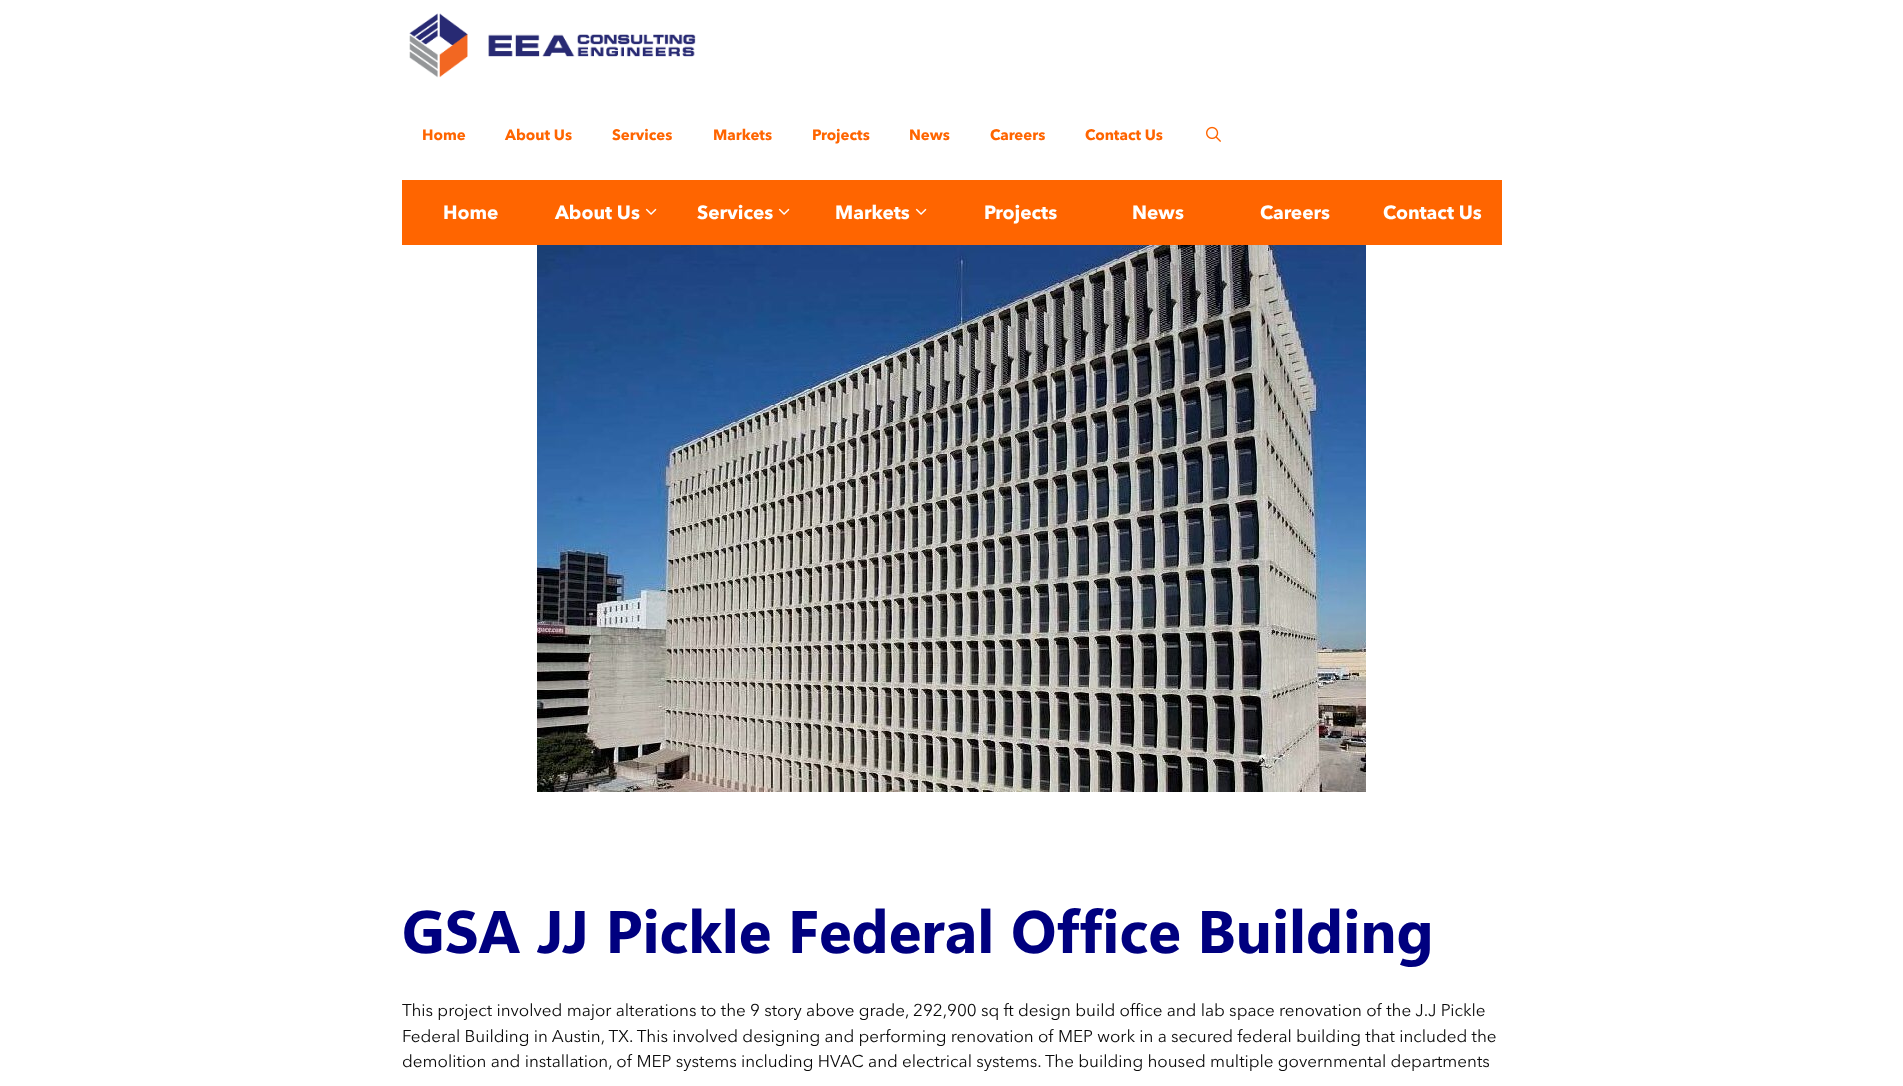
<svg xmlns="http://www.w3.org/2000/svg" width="1903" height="1086">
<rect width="100%" height="100%" fill="#fff"/>
<image x="409" y="13" width="287" height="65" href="media/1.png"/>
<text x="422" y="140" style="font-family:Avenir Next;font-size:15px;font-weight:bold;fill:#ff6500">Home</text>
<text x="505" y="140" style="font-family:Avenir Next;font-size:15px;font-weight:bold;fill:#ff6500">About Us</text>
<text x="612" y="140" style="font-family:Avenir Next;font-size:15px;font-weight:bold;fill:#ff6500">Services</text>
<text x="713" y="140" style="font-family:Avenir Next;font-size:15px;font-weight:bold;fill:#ff6500">Markets</text>
<text x="812" y="140" style="font-family:Avenir Next;font-size:15px;font-weight:bold;fill:#ff6500">Projects</text>
<text x="909" y="140" style="font-family:Avenir Next;font-size:15px;font-weight:bold;fill:#ff6500">News</text>
<text x="990" y="140" style="font-family:Avenir Next;font-size:15px;font-weight:bold;fill:#ff6500">Careers</text>
<text x="1085" y="140" style="font-family:Avenir Next;font-size:15px;font-weight:bold;fill:#ff6500">Contact Us</text>
<image x="1206" y="126" width="15" height="16" href="media/2.png"/>
<rect x="402" y="180" width="1100" height="65" fill="#ff6500"/>
<text x="443" y="219" style="font-family:Avenir Next;font-size:19px;font-weight:bold;fill:#fff">Home</text>
<text x="555" y="219" style="font-family:Avenir Next;font-size:19px;font-weight:bold;fill:#fff">About Us</text>
<image x="645" y="208" width="12" height="7" href="media/3.png"/>
<text x="697" y="219" style="font-family:Avenir Next;font-size:19px;font-weight:bold;fill:#fff">Services</text>
<image x="778" y="208" width="12" height="7" href="media/3.png"/>
<text x="835" y="219" style="font-family:Avenir Next;font-size:19px;font-weight:bold;fill:#fff">Markets</text>
<image x="915" y="208" width="12" height="7" href="media/3.png"/>
<text x="984" y="219" style="font-family:Avenir Next;font-size:19px;font-weight:bold;fill:#fff">Projects</text>
<text x="1132" y="219" style="font-family:Avenir Next;font-size:19px;font-weight:bold;fill:#fff">News</text>
<text x="1260" y="219" style="font-family:Avenir Next;font-size:19px;font-weight:bold;fill:#fff">Careers</text>
<text x="1383" y="219" style="font-family:Avenir Next;font-size:19px;font-weight:bold;fill:#fff">Contact Us</text>
<image x="537" y="245" width="829" height="547" href="media/4.png"/>
<text x="402" y="953" style="font-family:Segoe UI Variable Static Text;font-size:60px;font-weight:bold;fill:#00007f">GSA JJ Pickle Federal Office Building</text>
<text x="402" y="1016" style="font-family:Avenir Next;font-size:17px;fill:#0a0a0a">This project involved major alterations to the 9 story above grade, 292,900 sq ft design build office and lab space renovation of the J.J Pickle</text>
<text x="402" y="1042" style="font-family:Avenir Next;font-size:17px;fill:#0a0a0a">Federal Building in Austin, TX. This involved designing and performing renovation of MEP work in a secured federal building that included the</text>
<text x="402" y="1067" style="font-family:Avenir Next;font-size:17px;fill:#0a0a0a">demolition and installation, of MEP systems including HVAC and electrical systems. The building housed multiple governmental departments</text>
</svg>
